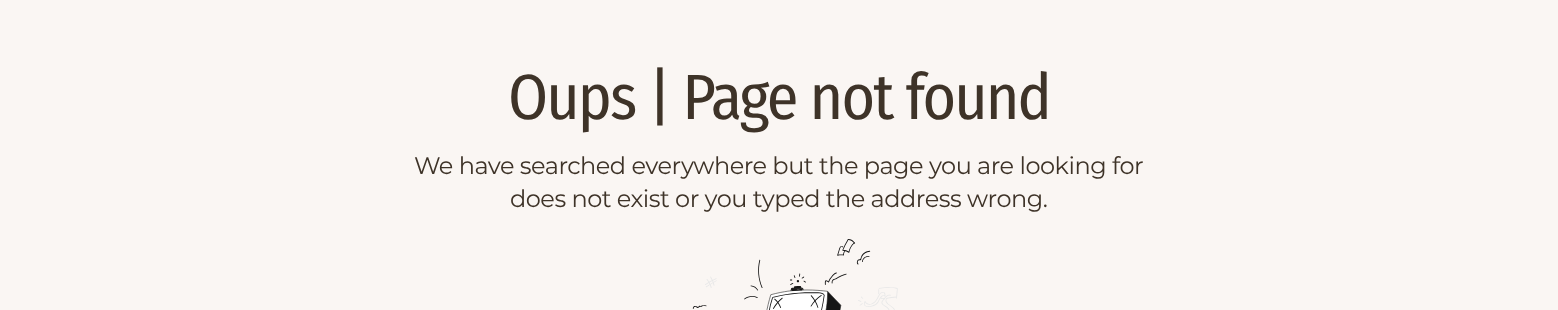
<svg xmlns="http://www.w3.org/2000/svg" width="1558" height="310">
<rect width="100%" height="100%" fill="#faf6f3"/>
<text x="508" y="119" style="font-family:Fira Sans Condensed;font-size:64px;letter-spacing:-1.9px;fill:#3e3328">Oups | Page not found</text>
<text x="414" y="174" style="font-family:Montserrat;font-size:24px;font-weight:100;letter-spacing:-0.48px;fill:#3e3328">We have searched everywhere but the page you are looking for</text>
<text x="510" y="207" style="font-family:Montserrat;font-size:24px;font-weight:100;letter-spacing:-0.48px;fill:#3e3328">does not exist or you typed the address wrong.</text>
<image x="692" y="239" width="206" height="71" href="media/1.png"/>
</svg>
